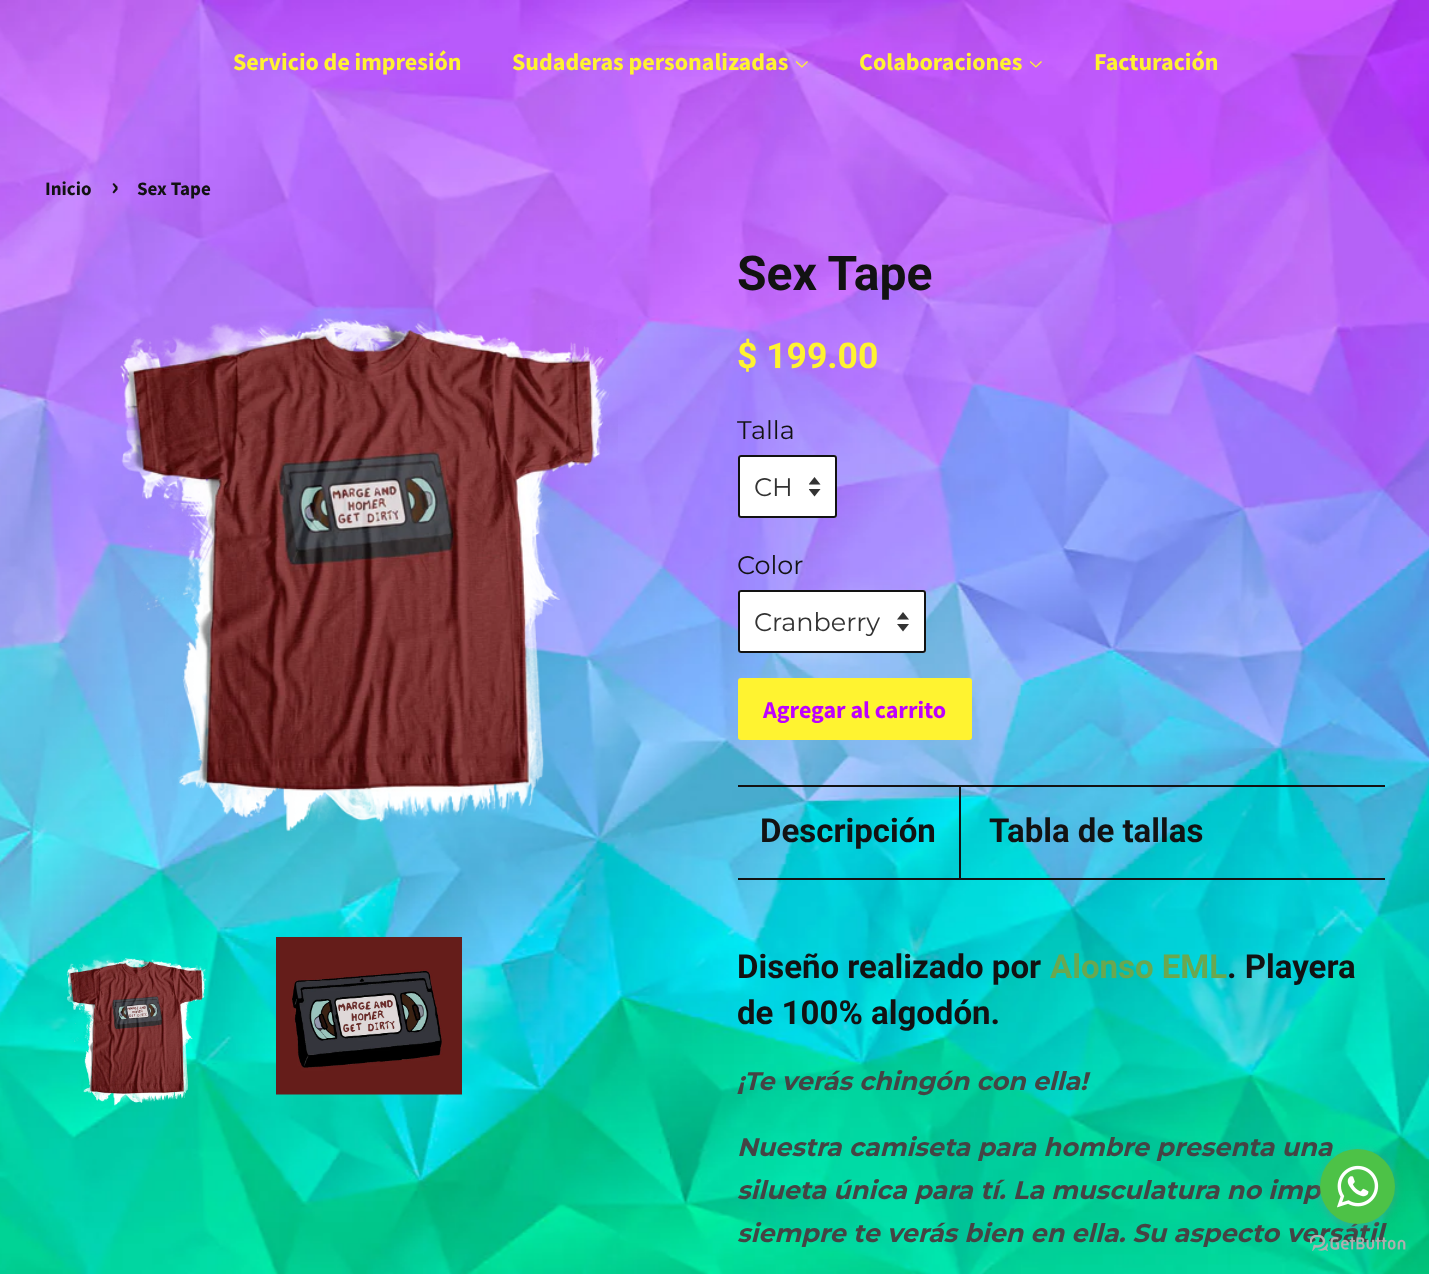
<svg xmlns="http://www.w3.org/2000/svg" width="1429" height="1274">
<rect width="100%" height="100%" fill="#fff"/>
<image x="0" y="0" width="1429" height="1274" href="media/1.png"/>
<text x="233" y="70" style="font-family:Source Sans Pro;font-size:24px;font-weight:bold;fill:#fff330">Servicio de impresión</text>
<text x="512" y="70" style="font-family:Source Sans Pro;font-size:24px;font-weight:bold;fill:#fff330">Sudaderas personalizadas</text>
<image x="795" y="61" width="13" height="7" href="media/2.png"/>
<text x="859" y="70" style="font-family:Source Sans Pro;font-size:24px;font-weight:bold;fill:#fff330">Colaboraciones</text>
<image x="1029" y="61" width="13" height="7" href="media/3.png"/>
<text x="1094" y="70" style="font-family:Source Sans Pro;font-size:24px;font-weight:bold;fill:#fff330">Facturación</text>
<text x="45" y="195" style="font-family:Source Sans Pro;font-size:19px;font-weight:bold;fill:#121212">Inicio</text>
<text x="111" y="195" style="font-family:Source Sans Pro;font-size:27px;font-weight:bold;fill:#121212">›</text>
<text x="137" y="195" style="font-family:Source Sans Pro;font-size:19px;font-weight:bold;fill:#121212">Sex Tape</text>
<image x="120" y="318" width="498" height="514" href="media/4.png"/>
<image x="66" y="958" width="141" height="148" href="media/5.png"/>
<image x="276" y="937" width="186" height="158" href="media/6.png"/>
<text x="737" y="290" style="font-family:Roboto;font-size:48px;font-weight:bold;fill:#121212">Sex Tape</text>
<text x="737" y="368" style="font-family:Roboto;font-size:35.5px;font-weight:bold;fill:#fff330">$ 199.00</text>
<text x="737" y="439" style="font-family:Montserrat;font-size:25.5px;fill:#121212">Talla</text>
<rect x="738" y="455" width="99" height="63" rx="3" fill="#fff"/>
<image x="809" y="477" width="12" height="20" href="media/7.png"/>
<rect x="739" y="456" width="97" height="61" rx="2" fill="none" stroke="#121212" stroke-width="2"/>
<text x="754" y="496" style="font-family:Montserrat;font-size:25.5px;fill:#333">CH</text>
<text x="737" y="574" style="font-family:Montserrat;font-size:25.5px;fill:#121212">Color</text>
<rect x="738" y="590" width="188" height="63" rx="3" fill="#fff"/>
<image x="897" y="612" width="12" height="20" href="media/8.png"/>
<rect x="739" y="591" width="186" height="61" rx="2" fill="none" stroke="#121212" stroke-width="2"/>
<text x="754" y="631" style="font-family:Montserrat;font-size:25.5px;fill:#333">Cranberry</text>
<rect x="738" y="678" width="234" height="62" rx="3" fill="#fff330"/>
<text x="763" y="718" style="font-family:Source Sans Pro;font-size:24px;font-weight:bold;fill:#be00ff">Agregar al carrito</text>
<rect x="738" y="785" width="647" height="2" fill="#121212"/>
<rect x="738" y="878" width="647" height="2" fill="#121212"/>
<rect x="959" y="786" width="2" height="92" fill="#121212"/>
<text x="760" y="842" style="font-family:Roboto;font-size:33px;font-weight:bold;fill:#121212">Descripción</text>
<text x="989" y="842" style="font-family:Roboto;font-size:33px;font-weight:bold;fill:#121212">Tabla de tallas</text>
<text x="737" y="978" style="font-family:Roboto;font-size:33px;font-weight:bold;fill:#121212">Diseño realizado por</text>
<text x="1050" y="978" style="font-family:Roboto;font-size:33px;font-weight:bold;fill:#6aa84f">Alonso EML</text>
<text x="1227" y="978" style="font-family:Roboto;font-size:33px;font-weight:bold;fill:#121212">. Playera</text>
<text x="737" y="1024" style="font-family:Roboto;font-size:33px;font-weight:bold;fill:#121212">de 100% algodón.</text>
<text x="737" y="1090" style="font-family:Montserrat;font-size:25.5px;font-weight:bold;font-style:italic;fill:#444">¡Te verás chingón con ella!</text>
<text x="737" y="1156" style="font-family:Montserrat;font-size:25.5px;font-weight:bold;font-style:italic;fill:#444">Nuestra camiseta para hombre presenta una</text>
<text x="737" y="1199" style="font-family:Montserrat;font-size:25.5px;font-weight:bold;font-style:italic;fill:#444">silueta única para tí. La musculatura no imp</text>
<text x="737" y="1242" style="font-family:Montserrat;font-size:25.5px;font-weight:bold;font-style:italic;fill:#444">siempre te verás bien en ella. Su aspecto versátil</text>
<image x="1310" y="1235" width="96" height="16" href="media/10.png"/>
<rect x="1320" y="1151" width="75" height="75" rx="37.5" fill="#88888866" filter="blur(5px)"/>
<circle cx="1357.5" cy="1186.5" r="37.5" fill="#4dc247"/>
<image x="1337" y="1165" width="42" height="43" href="media/9.png"/>
</svg>
